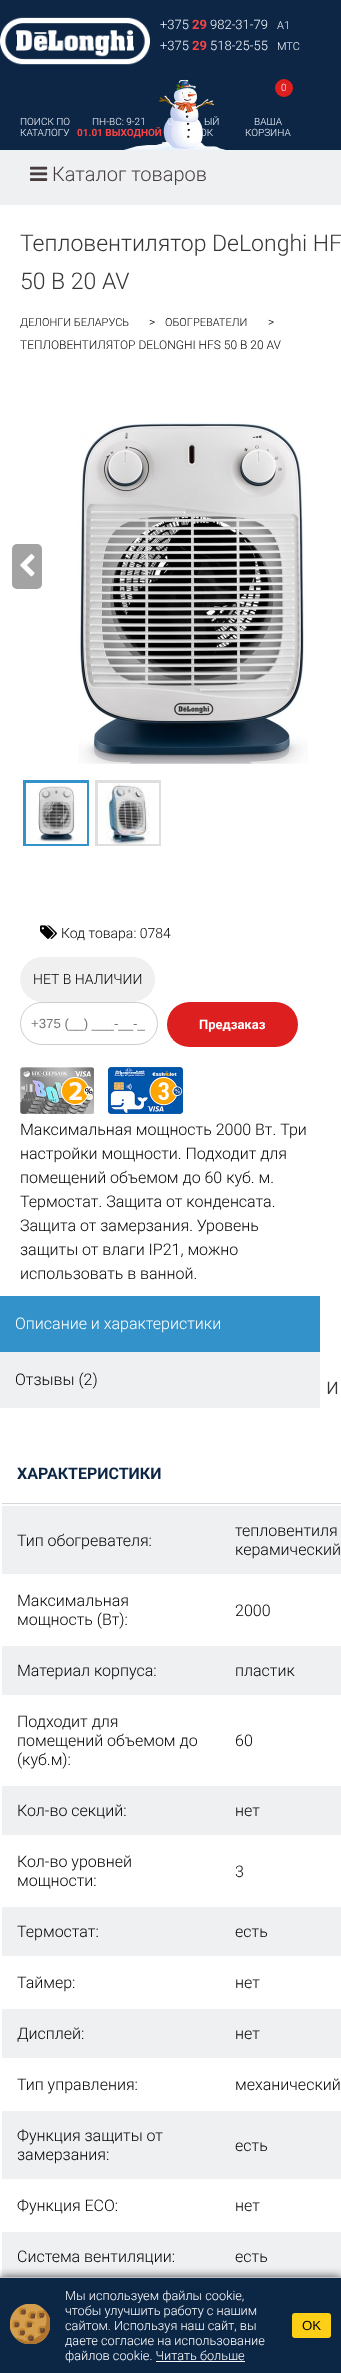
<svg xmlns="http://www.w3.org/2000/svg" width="341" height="2373">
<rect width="100%" height="100%" fill="#fff"/>
<image x="0" y="0" width="341" height="150" href="media/1.png"/>
<image x="0" y="17" width="150" height="48" href="media/2.png"/>
<text x="160" y="29" style="font-family:Roboto;font-size:13px;font-weight:300;fill:#f2f8ff">+375</text>
<text x="192" y="29" style="font-family:Roboto;font-size:13px;font-weight:bold;fill:#f94444">29</text>
<text x="210" y="29" style="font-family:Roboto;font-size:13px;font-weight:300;fill:#f2f8ff">982-31-79</text>
<text x="277" y="29" style="font-family:Roboto;font-size:11px;font-weight:300;fill:#f2f8ff">А1</text>
<text x="160" y="50" style="font-family:Roboto;font-size:13px;font-weight:300;fill:#f2f8ff">+375</text>
<text x="192" y="50" style="font-family:Roboto;font-size:13px;font-weight:bold;fill:#f94444">29</text>
<text x="210" y="50" style="font-family:Roboto;font-size:13px;font-weight:300;fill:#f2f8ff">518-25-55</text>
<text x="277" y="50" style="font-family:Roboto;font-size:11px;font-weight:300;fill:#f2f8ff">МТС</text>
<text x="20" y="125" style="font-family:Roboto;font-size:10px;font-weight:300;fill:#f2f8ff">ПОИСК ПО</text>
<text x="20" y="136" style="font-family:Roboto;font-size:10px;font-weight:300;fill:#f2f8ff">КАТАЛОГУ</text>
<text x="92" y="125" style="font-family:Roboto;font-size:10px;font-weight:300;fill:#f2f8ff">ПН-ВС: 9-21</text>
<text x="77" y="136" style="font-family:Roboto;font-size:10px;font-weight:bold;fill:#f94444">01.01 ВЫХОДНОЙ</text>
<text x="167" y="125" style="font-family:Roboto;font-size:10px;font-weight:300;fill:#f2f8ff">О</text>
<text x="204" y="125" style="font-family:Roboto;font-size:10px;font-weight:300;fill:#f2f8ff">ЫЙ</text>
<text x="200" y="136" style="font-family:Roboto;font-size:10px;font-weight:300;fill:#f2f8ff">ОК</text>
<circle cx="284" cy="88" r="9" fill="#de1f1f"/>
<text x="281" y="91" style="font-family:Roboto;font-size:10px;font-weight:300;fill:#f2f8ff">0</text>
<text x="254" y="125" style="font-family:Roboto;font-size:10px;font-weight:300;fill:#f2f8ff">ВАША</text>
<text x="245" y="136" style="font-family:Roboto;font-size:10px;font-weight:300;fill:#f2f8ff">КОРЗИНА</text>
<rect y="150" width="341" height="55" fill="#eef0f2"/>
<image x="30" y="166" width="18" height="15" href="media/3.png"/>
<text x="52" y="181" style="font-family:Roboto;font-size:20px;font-weight:300;fill:#473d3f">Каталог товаров</text>
<text x="20" y="251" style="font-family:Roboto;font-size:23px;font-weight:300;fill:#363636">Тепловентилятор DeLonghi HF</text>
<text x="20" y="289" style="font-family:Roboto;font-size:23px;font-weight:300;fill:#363636">50 B 20 AV</text>
<text x="20" y="326" style="font-family:Roboto;font-size:11px;font-weight:300;fill:#000">ДЕЛОНГИ БЕЛАРУСЬ</text>
<text x="149" y="326" style="font-family:Roboto;font-size:12px;font-weight:300;fill:#000">&gt;</text>
<text x="165" y="326" style="font-family:Roboto;font-size:11px;font-weight:300;fill:#000">ОБОГРЕВАТЕЛИ</text>
<text x="268" y="326" style="font-family:Roboto;font-size:12px;font-weight:300;fill:#000">&gt;</text>
<text x="20" y="349" style="font-family:Roboto;font-size:12px;font-weight:300;fill:#000">ТЕПЛОВЕНТИЛЯТОР DELONGHI HFS 50 B 20 AV</text>
<rect x="12" y="544" width="30" height="45" rx="5" fill="#a3a3a3"/>
<image x="20" y="554" width="15" height="23" href="media/4.png"/>
<image x="78" y="422" width="230" height="342" href="media/5.png"/>
<rect x="24.5" y="781.5" width="63" height="63" fill="none" stroke="#3292c9" stroke-width="3"/>
<image x="26" y="783" width="61" height="61" href="media/6.png"/>
<rect x="96.5" y="781.5" width="63" height="63" fill="none" stroke="#dfdfdf" stroke-width="3"/>
<image x="98" y="783" width="61" height="61" href="media/7.png"/>
<image x="40" y="925" width="17" height="14" href="media/8.png"/>
<text x="61" y="938" style="font-family:Roboto;font-size:14px;font-weight:300;fill:#000">Код товара: 0784</text>
<rect x="20" y="957" width="135" height="45" rx="22.5" fill="#f0f0f0"/>
<text x="33" y="984" style="font-family:Roboto;font-size:14px;font-weight:300;fill:#000">НЕТ В НАЛИЧИИ</text>
<rect x="20.5" y="1002.5" width="137" height="42" rx="21" fill="none" stroke="#ccc"/>
<text x="31" y="1028" style="font-family:Liberation Sans;font-size:13.25px;fill:#757575">+375 (__) ___-__-_</text>
<rect x="167" y="1002" width="131" height="45" rx="22.5" fill="#de1f1f"/>
<text x="199" y="1029" style="font-family:Roboto;font-size:13px;font-weight:bold;fill:#fff">Предзаказ</text>
<image x="20" y="1067" width="74" height="47" href="media/9.png"/>
<image x="108" y="1067" width="75" height="47" href="media/10.png"/>
<text x="20" y="1135" style="font-family:Roboto;font-size:16px;font-weight:300;fill:#000">Максимальная мощность 2000 Вт. Три</text>
<text x="20" y="1159" style="font-family:Roboto;font-size:16px;font-weight:300;fill:#000">настройки мощности. Подходит для</text>
<text x="20" y="1183" style="font-family:Roboto;font-size:16px;font-weight:300;fill:#000">помещений объемом до 60 куб. м.</text>
<text x="20" y="1207" style="font-family:Roboto;font-size:16px;font-weight:300;fill:#000">Термостат. Защита от конденсата.</text>
<text x="20" y="1231" style="font-family:Roboto;font-size:16px;font-weight:300;fill:#000">Защита от замерзания. Уровень</text>
<text x="20" y="1255" style="font-family:Roboto;font-size:16px;font-weight:300;fill:#000">защиты от влаги IP21, можно</text>
<text x="20" y="1279" style="font-family:Roboto;font-size:16px;font-weight:300;fill:#000">использовать в ванной.</text>
<rect y="1296" width="320" height="56" fill="#3292c9"/>
<text x="15" y="1329" style="font-family:Roboto;font-size:16px;font-weight:300;fill:#fff">Описание и характеристики</text>
<rect y="1352" width="320" height="56" fill="#eef0f2"/>
<text x="15" y="1385" style="font-family:Roboto;font-size:16px;font-weight:300;fill:#000">Отзывы (2)</text>
<text x="326" y="1394" style="font-family:Roboto;font-size:23px;font-weight:300;fill:#363636">и</text>
<rect x="2" y="1503" width="339" height="1" fill="#d4d9de"/>
<text x="17" y="1479" style="font-family:Roboto;font-size:16px;font-weight:bold;fill:#0c2645">ХАРАКТЕРИСТИКИ</text>
<rect x="2" y="1506" width="339" height="68" fill="#eef0f2"/>
<text x="17" y="1546" style="font-family:Roboto;font-size:16px;font-weight:300;fill:#000">Тип обогревателя:</text>
<text x="235" y="1536" style="font-family:Roboto;font-size:16px;font-weight:300;fill:#000">тепловентиля</text>
<text x="235" y="1555" style="font-family:Roboto;font-size:16px;font-weight:300;fill:#000">керамический</text>
<text x="17" y="1606" style="font-family:Roboto;font-size:16px;font-weight:300;fill:#000">Максимальная</text>
<text x="17" y="1625" style="font-family:Roboto;font-size:16px;font-weight:300;fill:#000">мощность (Вт):</text>
<text x="235" y="1616" style="font-family:Roboto;font-size:16px;font-weight:300;fill:#000">2000</text>
<rect x="2" y="1646" width="339" height="49" fill="#eef0f2"/>
<text x="17" y="1676" style="font-family:Roboto;font-size:16px;font-weight:300;fill:#000">Материал корпуса:</text>
<text x="235" y="1676" style="font-family:Roboto;font-size:16px;font-weight:300;fill:#000">пластик</text>
<text x="17" y="1727" style="font-family:Roboto;font-size:16px;font-weight:300;fill:#000">Подходит для</text>
<text x="17" y="1746" style="font-family:Roboto;font-size:16px;font-weight:300;fill:#000">помещений объемом до</text>
<text x="17" y="1765" style="font-family:Roboto;font-size:16px;font-weight:300;fill:#000">(куб.м):</text>
<text x="235" y="1746" style="font-family:Roboto;font-size:16px;font-weight:300;fill:#000">60</text>
<rect x="2" y="1786" width="339" height="49" fill="#eef0f2"/>
<text x="17" y="1816" style="font-family:Roboto;font-size:16px;font-weight:300;fill:#000">Кол-во секций:</text>
<text x="235" y="1816" style="font-family:Roboto;font-size:16px;font-weight:300;fill:#000">нет</text>
<text x="17" y="1867" style="font-family:Roboto;font-size:16px;font-weight:300;fill:#000">Кол-во уровней</text>
<text x="17" y="1886" style="font-family:Roboto;font-size:16px;font-weight:300;fill:#000">мощности:</text>
<text x="235" y="1877" style="font-family:Roboto;font-size:16px;font-weight:300;fill:#000">3</text>
<rect x="2" y="1907" width="339" height="49" fill="#eef0f2"/>
<text x="17" y="1937" style="font-family:Roboto;font-size:16px;font-weight:300;fill:#000">Термостат:</text>
<text x="235" y="1937" style="font-family:Roboto;font-size:16px;font-weight:300;fill:#000">есть</text>
<text x="17" y="1988" style="font-family:Roboto;font-size:16px;font-weight:300;fill:#000">Таймер:</text>
<text x="235" y="1988" style="font-family:Roboto;font-size:16px;font-weight:300;fill:#000">нет</text>
<rect x="2" y="2009" width="339" height="49" fill="#eef0f2"/>
<text x="17" y="2039" style="font-family:Roboto;font-size:16px;font-weight:300;fill:#000">Дисплей:</text>
<text x="235" y="2039" style="font-family:Roboto;font-size:16px;font-weight:300;fill:#000">нет</text>
<text x="17" y="2090" style="font-family:Roboto;font-size:16px;font-weight:300;fill:#000">Тип управления:</text>
<text x="235" y="2090" style="font-family:Roboto;font-size:16px;font-weight:300;fill:#000">механический</text>
<rect x="2" y="2111" width="339" height="68" fill="#eef0f2"/>
<text x="17" y="2141" style="font-family:Roboto;font-size:16px;font-weight:300;fill:#000">Функция защиты от</text>
<text x="17" y="2160" style="font-family:Roboto;font-size:16px;font-weight:300;fill:#000">замерзания:</text>
<text x="235" y="2151" style="font-family:Roboto;font-size:16px;font-weight:300;fill:#000">есть</text>
<text x="17" y="2211" style="font-family:Roboto;font-size:16px;font-weight:300;fill:#000">Функция ECO:</text>
<text x="235" y="2211" style="font-family:Roboto;font-size:16px;font-weight:300;fill:#000">нет</text>
<rect x="2" y="2232" width="339" height="45" fill="#eef0f2"/>
<text x="17" y="2262" style="font-family:Roboto;font-size:16px;font-weight:300;fill:#000">Система вентиляции:</text>
<text x="235" y="2262" style="font-family:Roboto;font-size:16px;font-weight:300;fill:#000">есть</text>
<rect y="2277" width="341" height="96" fill="#424242" filter="blur(5px)"/>
<rect y="2278" width="341" height="95" fill="#0c2645"/>
<rect y="2277" width="341" height="1" fill="#c2c2c2"/>
<image x="10" y="2304" width="40" height="40" href="media/11.png"/>
<text x="65" y="2300" style="font-family:Roboto;font-size:12.75px;font-weight:300;fill:#fff">Мы используем файлы cookie,</text>
<text x="65" y="2315" style="font-family:Roboto;font-size:12.75px;font-weight:300;fill:#fff">чтобы улучшить работу с нашим</text>
<text x="65" y="2330" style="font-family:Roboto;font-size:12.75px;font-weight:300;fill:#fff">сайтом. Используя наш сайт, вы</text>
<text x="65" y="2345" style="font-family:Roboto;font-size:12.75px;font-weight:300;fill:#fff">даете согласие на использование</text>
<text x="65" y="2360" style="font-family:Roboto;font-size:12.75px;font-weight:300;fill:#fff">файлов cookie. Читать больше</text>
<rect x="156" y="2361" width="89" height="1" fill="#fff"/>
<rect x="292" y="2313" width="39" height="25" rx="3" fill="#fdd017"/>
<text x="302" y="2330" style="font-family:Liberation Sans;font-size:13.25px;fill:#000">OK</text>
</svg>
